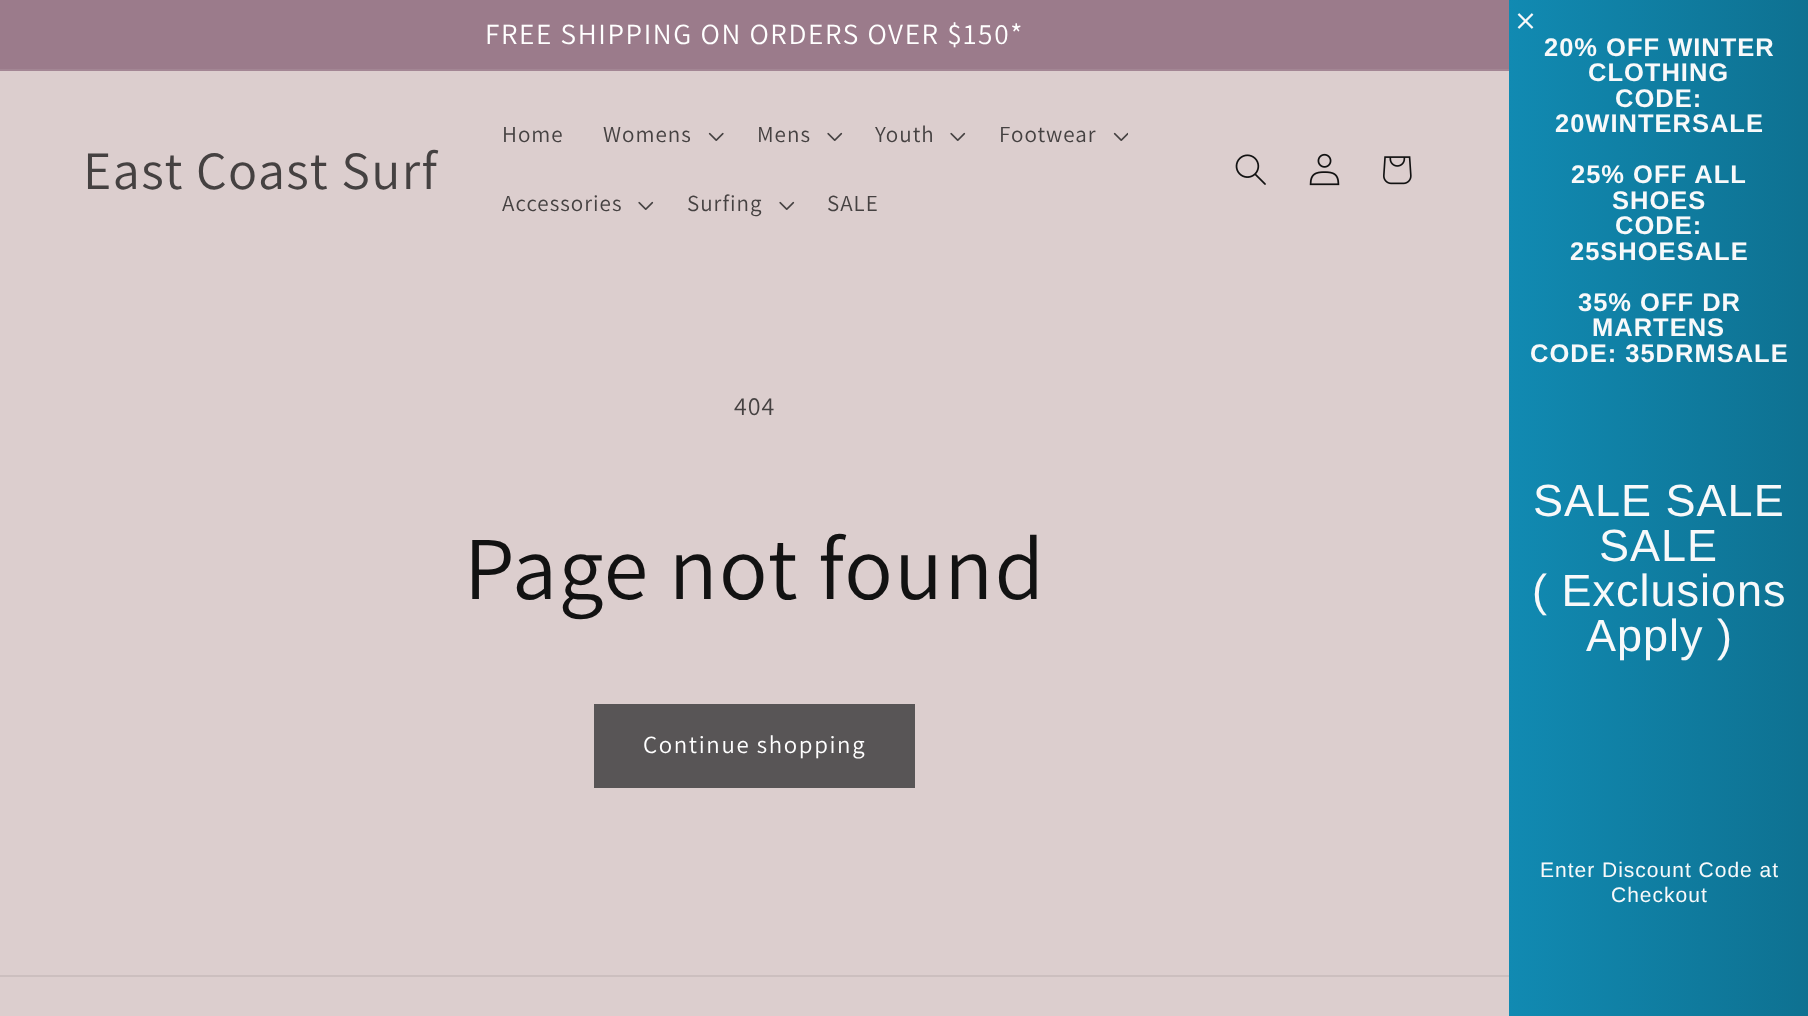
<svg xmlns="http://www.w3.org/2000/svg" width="1808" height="1016">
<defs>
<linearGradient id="g1" gradientUnits="userSpaceOnUse" x1="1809" y1="509" x2="1509" y2="509"><stop offset="0" stop-color="#0e7191"/><stop offset="1" stop-color="#118ab2"/></linearGradient>
</defs>
<rect width="100%" height="100%" fill="#dccece"/>
<rect width="1509" height="69" fill="#9b7b8b"/>
<rect y="69" width="1509" height="2" fill="#a38694"/>
<text x="485" y="44" style="font-family:Assistant;font-size:29.25px;letter-spacing:1.65px;fill:#fff">FREE SHIPPING ON ORDERS OVER $150*</text>
<text x="83" y="189" style="font-family:Assistant;font-size:54px;letter-spacing:1.4px;fill:#454141">East Coast Surf</text>
<text x="502" y="142" style="font-family:Assistant;font-size:23px;letter-spacing:1px;fill:#454141">Home</text>
<text x="603" y="142" style="font-family:Assistant;font-size:23px;letter-spacing:1px;fill:#454141">Womens</text>
<image x="708" y="132" width="16" height="9" href="media/1.png"/>
<text x="757" y="142" style="font-family:Assistant;font-size:23px;letter-spacing:1px;fill:#454141">Mens</text>
<image x="827" y="132" width="16" height="9" href="media/2.png"/>
<text x="875" y="142" style="font-family:Assistant;font-size:23px;letter-spacing:1px;fill:#454141">Youth</text>
<image x="950" y="132" width="16" height="9" href="media/2.png"/>
<text x="999" y="142" style="font-family:Assistant;font-size:23px;letter-spacing:1px;fill:#454141">Footwear</text>
<image x="1113" y="132" width="15" height="9" href="media/3.png"/>
<text x="502" y="211" style="font-family:Assistant;font-size:23px;letter-spacing:1px;fill:#454141">Accessories</text>
<image x="638" y="201" width="16" height="9" href="media/2.png"/>
<text x="687" y="211" style="font-family:Assistant;font-size:23px;letter-spacing:1px;fill:#454141">Surfing</text>
<image x="779" y="201" width="16" height="9" href="media/2.png"/>
<text x="827" y="211" style="font-family:Assistant;font-size:23px;letter-spacing:1px;fill:#454141">SALE</text>
<image x="1235" y="154" width="31" height="31" href="media/4.png"/>
<image x="1309" y="153" width="31" height="33" href="media/5.png"/>
<image x="1383" y="156" width="29" height="29" href="media/6.png"/>
<rect x="1509" width="299" height="1016" fill="url(#g1)"/>
<image x="1517" y="13" width="17" height="16" href="media/7.png"/>
<text x="1544" y="56" style="font-family:Liberation Sans;font-size:25.5px;font-weight:bold;letter-spacing:1px;fill:#f8f9fa">20% OFF WINTER</text>
<text x="1588" y="81" style="font-family:Liberation Sans;font-size:25.5px;font-weight:bold;letter-spacing:1px;fill:#f8f9fa">CLOTHING</text>
<text x="1615" y="107" style="font-family:Liberation Sans;font-size:25.5px;font-weight:bold;letter-spacing:1px;fill:#f8f9fa">CODE:</text>
<text x="1555" y="132" style="font-family:Liberation Sans;font-size:25.5px;font-weight:bold;letter-spacing:1px;fill:#f8f9fa">20WINTERSALE</text>
<text x="1571" y="183" style="font-family:Liberation Sans;font-size:25.5px;font-weight:bold;letter-spacing:1px;fill:#f8f9fa">25% OFF ALL</text>
<text x="1612" y="209" style="font-family:Liberation Sans;font-size:25.5px;font-weight:bold;letter-spacing:1px;fill:#f8f9fa">SHOES</text>
<text x="1615" y="234" style="font-family:Liberation Sans;font-size:25.5px;font-weight:bold;letter-spacing:1px;fill:#f8f9fa">CODE:</text>
<text x="1570" y="260" style="font-family:Liberation Sans;font-size:25.5px;font-weight:bold;letter-spacing:1px;fill:#f8f9fa">25SHOESALE</text>
<text x="1578" y="311" style="font-family:Liberation Sans;font-size:25.5px;font-weight:bold;letter-spacing:1px;fill:#f8f9fa">35% OFF DR</text>
<text x="1592" y="336" style="font-family:Liberation Sans;font-size:25.5px;font-weight:bold;letter-spacing:1px;fill:#f8f9fa">MARTENS</text>
<text x="1530" y="362" style="font-family:Liberation Sans;font-size:25.5px;font-weight:bold;letter-spacing:1px;fill:#f8f9fa">CODE: 35DRMSALE</text>
<text x="1533" y="516" style="font-family:Liberation Sans;font-size:45px;letter-spacing:1px;fill:#f8f9fa">SALE SALE</text>
<text x="1599" y="561" style="font-family:Liberation Sans;font-size:45px;letter-spacing:1px;fill:#f8f9fa">SALE</text>
<text x="1532" y="606" style="font-family:Liberation Sans;font-size:45px;letter-spacing:1px;fill:#f8f9fa">( Exclusions</text>
<text x="1586" y="651" style="font-family:Liberation Sans;font-size:45px;letter-spacing:1px;fill:#f8f9fa">Apply )</text>
<text x="1540" y="877" style="font-family:Liberation Sans;font-size:21px;letter-spacing:1px;fill:#f8f9fa">Enter Discount Code at</text>
<text x="1611" y="902" style="font-family:Liberation Sans;font-size:21px;letter-spacing:1px;fill:#f8f9fa">Checkout</text>
<text x="734" y="415" style="font-family:Assistant;font-size:26px;letter-spacing:1px;fill:#454141">404</text>
<text x="464" y="599" style="font-family:Assistant;font-size:90px;letter-spacing:1.4px;fill:#121212">Page not found</text>
<rect x="594" y="704" width="321" height="84" fill="#585556"/>
<text x="643" y="753" style="font-family:Assistant;font-size:24.75px;letter-spacing:1.65px;fill:#fff">Continue shopping</text>
<rect y="975" width="1509" height="2" fill="#ccbfbf"/>
</svg>
